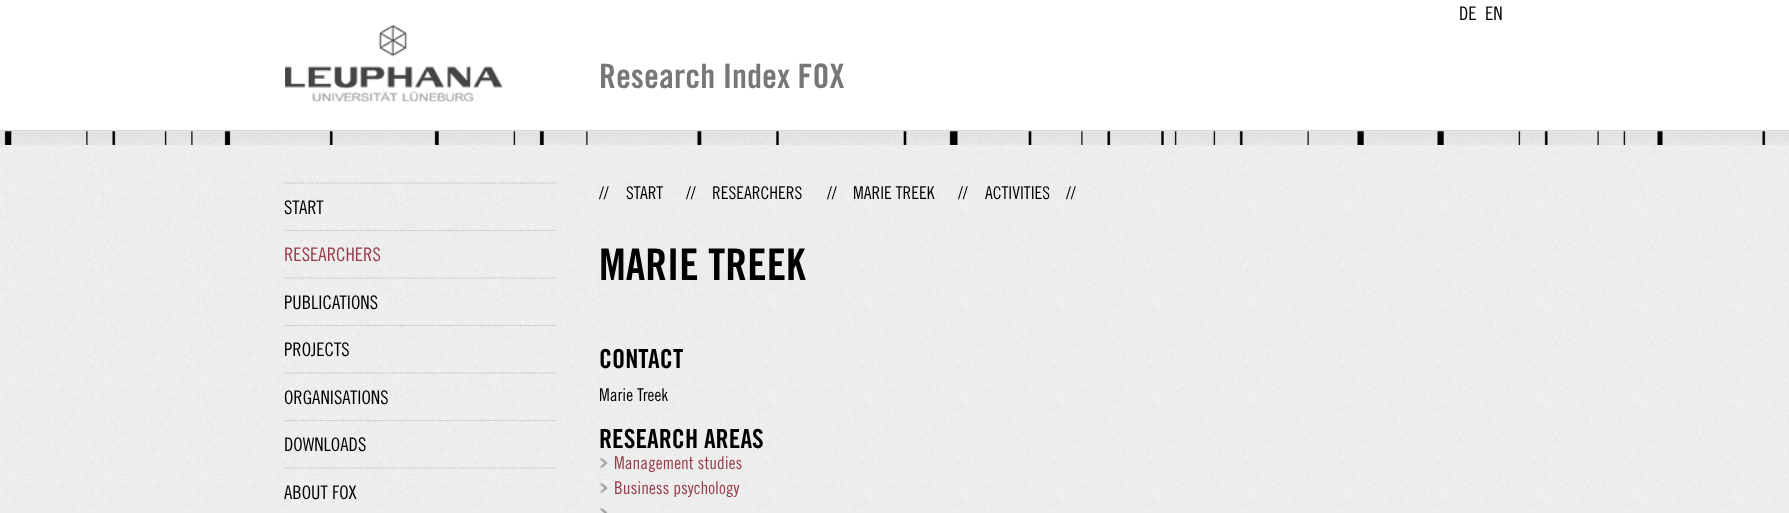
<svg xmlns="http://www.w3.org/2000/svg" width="1789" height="513">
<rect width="100%" height="100%" fill="#eee"/>
<image x="0" y="145" width="1789" height="366" href="media/1.png"/>
<rect width="1789" height="132" fill="#fff"/>
<rect y="130" width="1789" height="1" fill="#d6d6d6"/>
<text x="1459" y="20" style="font-family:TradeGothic;font-size:18.75px;fill:#000">DE</text>
<text x="1485" y="20" style="font-family:TradeGothic;font-size:18.75px;fill:#000">EN</text>
<image x="285" y="25" width="218" height="77" href="media/2.png"/>
<text x="599" y="88" style="font-family:'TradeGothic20';font-size:33.75px;font-weight:bold;fill:#777">Research Index FOX</text>
<image x="0" y="131" width="1789" height="14" href="media/3.png"/>
<path d="M285 183h271" fill="none" stroke="#b5b5b5" stroke-width="1.2" stroke-dasharray="1.25 1.25"/>
<text x="284" y="214" style="font-family:TradeGothic;font-size:18.75px;fill:#000">START</text>
<path d="M285 230.5h271" fill="none" stroke="#b5b5b5" stroke-width="1.2" stroke-dasharray="1.25 1.25"/>
<text x="284" y="261" style="font-family:TradeGothic;font-size:18.75px;fill:#973948">RESEARCHERS</text>
<path d="M285 278h271" fill="none" stroke="#b5b5b5" stroke-width="1.2" stroke-dasharray="1.25 1.25"/>
<text x="284" y="309" style="font-family:TradeGothic;font-size:18.75px;fill:#000">PUBLICATIONS</text>
<path d="M285 325.5h271" fill="none" stroke="#b5b5b5" stroke-width="1.2" stroke-dasharray="1.25 1.25"/>
<text x="284" y="356" style="font-family:TradeGothic;font-size:18.75px;fill:#000">PROJECTS</text>
<path d="M285 373h271" fill="none" stroke="#b5b5b5" stroke-width="1.2" stroke-dasharray="1.25 1.25"/>
<text x="284" y="404" style="font-family:TradeGothic;font-size:18.75px;fill:#000">ORGANISATIONS</text>
<path d="M285 420.5h271" fill="none" stroke="#b5b5b5" stroke-width="1.2" stroke-dasharray="1.25 1.25"/>
<text x="284" y="451" style="font-family:TradeGothic;font-size:18.75px;fill:#000">DOWNLOADS</text>
<path d="M285 468h271" fill="none" stroke="#b5b5b5" stroke-width="1.2" stroke-dasharray="1.25 1.25"/>
<text x="284" y="499" style="font-family:TradeGothic;font-size:18.75px;fill:#000">ABOUT FOX</text>
<text x="599" y="199" style="font-family:TradeGothic;font-size:17.5px;fill:#000">//</text>
<text x="626" y="199" style="font-family:TradeGothic;font-size:17.5px;fill:#000">START</text>
<text x="686" y="199" style="font-family:TradeGothic;font-size:17.5px;fill:#000">//</text>
<text x="712" y="199" style="font-family:TradeGothic;font-size:17.5px;fill:#000">RESEARCHERS</text>
<text x="827" y="199" style="font-family:TradeGothic;font-size:17.5px;fill:#000">//</text>
<text x="853" y="199" style="font-family:TradeGothic;font-size:17.5px;fill:#000">MARIE TREEK</text>
<text x="958" y="199" style="font-family:TradeGothic;font-size:17.5px;fill:#000">//</text>
<text x="985" y="199" style="font-family:TradeGothic;font-size:17.5px;fill:#000">ACTIVITIES</text>
<text x="1066" y="199" style="font-family:TradeGothic;font-size:17.5px;fill:#000">//</text>
<text x="599" y="280" style="font-family:'TradeGothic20';font-size:43.75px;font-weight:bold;fill:#000">MARIE TREEK</text>
<text x="599" y="368" style="font-family:'TradeGothic20';font-size:26.25px;font-weight:bold;fill:#000">CONTACT</text>
<text x="599" y="401" style="font-family:TradeGothic;font-size:17.5px;fill:#000">Marie Treek</text>
<text x="599" y="448" style="font-family:'TradeGothic20';font-size:26.25px;font-weight:bold;fill:#000">RESEARCH AREAS</text>
<image x="600" y="457" width="8" height="12" href="media/4.png"/>
<text x="614" y="469" style="font-family:TradeGothic;font-size:17.5px;fill:#973948">Management studies</text>
<image x="600" y="482" width="8" height="12" href="media/5.png"/>
<text x="614" y="494" style="font-family:TradeGothic;font-size:17.5px;fill:#973948">Business psychology</text>
<image x="600" y="507" width="8" height="6" href="media/6.png"/>
</svg>
